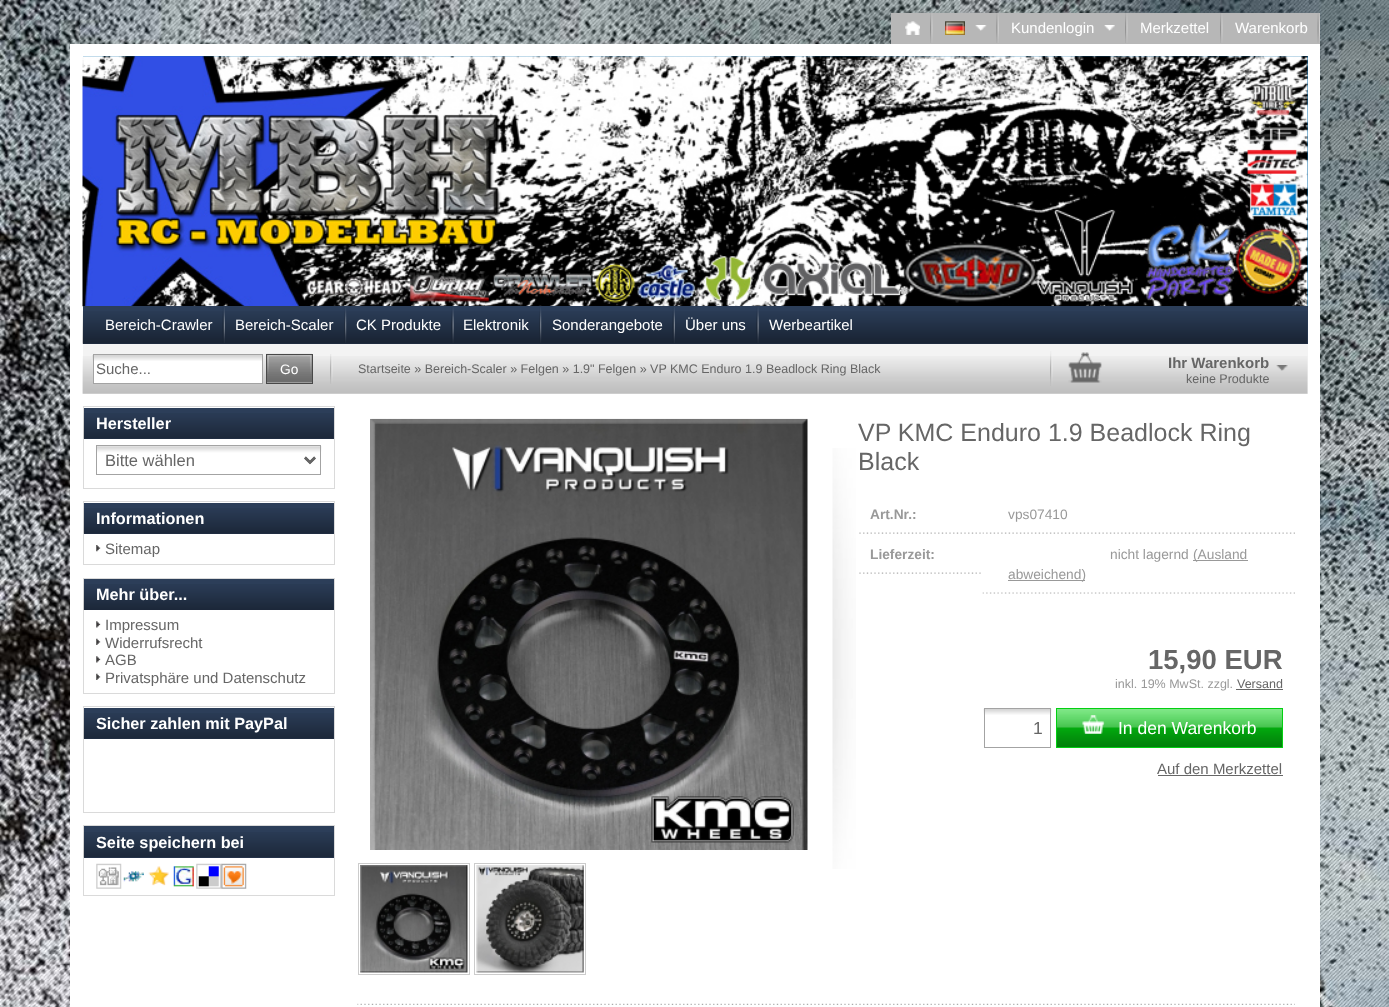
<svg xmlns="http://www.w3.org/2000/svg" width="1389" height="1007">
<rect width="100%" height="100%" fill="#fff"/>
<image x="0" y="0" width="1389" height="1007" href="media/1.png"/>
<rect x="891" y="13" width="429" height="31" fill="#b7b7b7"/>
<image x="930" y="13" width="3" height="30" href="media/2.png"/>
<image x="905" y="21" width="15" height="14" href="media/3.png"/>
<image x="996" y="13" width="3" height="30" href="media/4.png"/>
<image x="945" y="21" width="20" height="14" href="media/5.png"/>
<image x="975" y="25" width="12" height="6" href="media/6.png"/>
<image x="1125" y="13" width="3" height="30" href="media/2.png"/>
<text x="1011" y="33" style="font-family:Liberation Sans;font-size:15px;fill:#fff">Kundenlogin</text>
<image x="1104" y="25" width="11" height="6" href="media/7.png"/>
<image x="1220" y="13" width="3" height="30" href="media/2.png"/>
<text x="1140" y="33" style="font-family:Liberation Sans;font-size:15px;fill:#fff">Merkzettel</text>
<image x="1317" y="13" width="3" height="30" href="media/8.png"/>
<text x="1235" y="33" style="font-family:Liberation Sans;font-size:15px;fill:#fff">Warenkorb</text>
<rect x="70" y="44" width="1250" height="963" fill="#fff"/>
<rect x="83" y="56" width="1225" height="250" fill="#0f71af"/>
<image x="82" y="56" width="1226" height="251" href="media/9.png"/>
<rect x="83" y="306" width="1225" height="38" fill="#2c3e59"/>
<image x="82" y="311" width="1226" height="33" href="media/10.png"/>
<image x="222" y="307" width="3" height="36" href="media/11.png"/>
<text x="105" y="330" style="font-family:Liberation Sans;font-size:15px;fill:#fff">Bereich-Crawler</text>
<image x="344" y="307" width="3" height="36" href="media/12.png"/>
<text x="235" y="330" style="font-family:Liberation Sans;font-size:15px;fill:#fff">Bereich-Scaler</text>
<image x="451" y="307" width="3" height="36" href="media/13.png"/>
<text x="356" y="330" style="font-family:Liberation Sans;font-size:15px;fill:#fff">CK Produkte</text>
<image x="539" y="307" width="3" height="36" href="media/12.png"/>
<text x="463" y="330" style="font-family:Liberation Sans;font-size:15px;fill:#fff">Elektronik</text>
<image x="672" y="307" width="3" height="36" href="media/11.png"/>
<text x="552" y="330" style="font-family:Liberation Sans;font-size:15px;fill:#fff">Sonderangebote</text>
<image x="756" y="307" width="3" height="36" href="media/13.png"/>
<text x="685" y="330" style="font-family:Liberation Sans;font-size:15px;fill:#fff">Über uns</text>
<text x="769" y="330" style="font-family:Liberation Sans;font-size:15px;fill:#fff">Werbeartikel</text>
<rect x="83" y="344" width="1225" height="50" fill="#f3f3f3"/>
<image x="82" y="356" width="1226" height="38" href="media/14.png"/>
<image x="330" y="354" width="3" height="30" href="media/15.png"/>
<rect x="94" y="355" width="168" height="28" fill="#fff"/>
<image x="92" y="355" width="170" height="6" href="media/16.png"/>
<rect x="93.5" y="354.5" width="169" height="29" fill="none" stroke="#a3a3a3"/>
<text x="96" y="374" style="font-family:Liberation Sans;font-size:15px;fill:#666">Suche...</text>
<rect x="267" y="355" width="45" height="26" fill="#c8c8c8"/>
<image x="266" y="353" width="46" height="30" href="media/17.png"/>
<rect x="266.5" y="354.5" width="46" height="29" fill="none" stroke="#484848"/>
<image x="267" y="355" width="29" height="19" href="media/18.png"/>
<image x="284" y="355" width="28" height="19" href="media/19.png"/>
<text x="280" y="374" style="font-family:Liberation Sans;font-size:13.75px;fill:#fff">Go</text>
<text x="358" y="373" style="font-family:Liberation Sans;font-size:12.5px;fill:#666">Startseite » Bereich-Scaler » Felgen » 1.9" Felgen » VP KMC Enduro 1.9 Beadlock Ring Black</text>
<image x="1050" y="351" width="3" height="35" href="media/20.png"/>
<image x="1068" y="352" width="34" height="31" href="media/21.png"/>
<text x="1168" y="368" style="font-family:Liberation Sans;font-size:15px;font-weight:bold;fill:#666">Ihr Warenkorb</text>
<text x="1186" y="383" style="font-family:Liberation Sans;font-size:12.5px;fill:#666">keine Produkte</text>
<image x="1276" y="365" width="12" height="6" href="media/22.png"/>
<rect x="83.5" y="406.5" width="251" height="82" fill="none" stroke="#dadada"/>
<rect x="84" y="408" width="250" height="31" fill="#2c3e59"/>
<image x="83" y="413" width="251" height="26" href="media/23.png"/>
<text x="96" y="429" style="font-family:Liberation Sans;font-size:16.25px;font-weight:bold;fill:#fff">Hersteller</text>
<image x="97" y="446" width="225" height="19" href="media/24.png"/>
<rect x="96.5" y="445.5" width="224" height="29" fill="none" stroke="#a3a3a3"/>
<path d="M305 457.5l5 5l5-5" fill="none" stroke="#666" stroke-width="2.5"/>
<text x="105" y="466" style="font-family:Liberation Sans;font-size:16.5px;fill:#666">Bitte wählen</text>
<rect x="83.5" y="501.5" width="251" height="63" fill="none" stroke="#dadada"/>
<rect x="84" y="503" width="250" height="31" fill="#2c3e59"/>
<image x="83" y="508" width="251" height="26" href="media/23.png"/>
<text x="96" y="524" style="font-family:Liberation Sans;font-size:16.25px;font-weight:bold;fill:#fff">Informationen</text>
<image x="96" y="545" width="5" height="7" href="media/25.png"/>
<text x="105" y="554" style="font-family:Liberation Sans;font-size:15px;fill:#666">Sitemap</text>
<rect x="83.5" y="578.5" width="251" height="115" fill="none" stroke="#dadada"/>
<rect x="84" y="579" width="250" height="31" fill="#2c3e59"/>
<image x="83" y="584" width="251" height="26" href="media/26.png"/>
<text x="96" y="600" style="font-family:Liberation Sans;font-size:16.25px;font-weight:bold;fill:#fff">Mehr über...</text>
<image x="96" y="621" width="5" height="7" href="media/27.png"/>
<text x="105" y="630" style="font-family:Liberation Sans;font-size:15px;fill:#666">Impressum</text>
<image x="96" y="638" width="5" height="7" href="media/28.png"/>
<text x="105" y="648" style="font-family:Liberation Sans;font-size:15px;fill:#666">Widerrufsrecht</text>
<image x="96" y="656" width="5" height="7" href="media/27.png"/>
<text x="105" y="665" style="font-family:Liberation Sans;font-size:15px;fill:#666">AGB</text>
<image x="96" y="673" width="5" height="7" href="media/28.png"/>
<text x="105" y="683" style="font-family:Liberation Sans;font-size:15px;fill:#666">Privatsphäre und Datenschutz</text>
<rect x="83.5" y="706.5" width="251" height="106" fill="none" stroke="#dadada"/>
<rect x="84" y="708" width="250" height="31" fill="#2c3e59"/>
<image x="83" y="713" width="251" height="26" href="media/23.png"/>
<text x="96" y="729" style="font-family:Liberation Sans;font-size:16.25px;font-weight:bold;fill:#fff">Sicher zahlen mit PayPal</text>
<rect x="83.5" y="825.5" width="251" height="70" fill="none" stroke="#dadada"/>
<rect x="84" y="826" width="250" height="32" fill="#2c3e59"/>
<image x="83" y="832" width="251" height="26" href="media/29.png"/>
<text x="96" y="848" style="font-family:Liberation Sans;font-size:16.25px;font-weight:bold;fill:#fff">Seite speichern bei</text>
<image x="96" y="863" width="26" height="26" href="media/30.png"/>
<image x="123" y="871" width="21" height="11" href="media/31.png"/>
<image x="148" y="866" width="21" height="20" href="media/32.png"/>
<image x="173" y="866" width="21" height="21" href="media/33.png"/>
<image x="196" y="863" width="26" height="26" href="media/34.png"/>
<image x="221" y="863" width="26" height="26" href="media/35.png"/>
<image x="370" y="418" width="438" height="432" href="media/36.png"/>
<rect x="358.5" y="863.5" width="111" height="111" fill="none" stroke="#ccc"/>
<image x="360" y="865" width="108" height="108" href="media/37.png"/>
<rect x="474.5" y="863.5" width="111" height="111" fill="none" stroke="#ccc"/>
<image x="476" y="865" width="108" height="108" href="media/38.png"/>
<image x="832" y="448" width="24" height="421" href="media/39.png"/>
<text x="858" y="441" style="font-family:Liberation Sans;font-size:25px;fill:#666">VP KMC Enduro 1.9 Beadlock Ring</text>
<text x="858" y="470" style="font-family:Liberation Sans;font-size:25px;fill:#666">Black</text>
<image x="859" y="532" width="122" height="2" href="media/40.png"/>
<text x="870" y="519" style="font-family:Liberation Sans;font-size:13.75px;font-weight:bold;fill:#999">Art.Nr.:</text>
<image x="982" y="532" width="313" height="2" href="media/41.png"/>
<text x="1008" y="519" style="font-family:Liberation Sans;font-size:13.75px;fill:#999">vps07410</text>
<image x="859" y="572" width="122" height="2" href="media/40.png"/>
<text x="870" y="559" style="font-family:Liberation Sans;font-size:13.75px;font-weight:bold;fill:#999">Lieferzeit:</text>
<image x="982" y="592" width="313" height="2" href="media/42.png"/>
<text x="1110" y="559" style="font-family:Liberation Sans;font-size:13.75px;fill:#999">nicht lagernd</text>
<rect x="1193" y="560" width="55" height="1" fill="#999"/>
<text x="1193" y="559" style="font-family:Liberation Sans;font-size:13.75px;fill:#999">(Ausland</text>
<rect x="1008" y="580" width="77" height="1" fill="#999"/>
<text x="1008" y="579" style="font-family:Liberation Sans;font-size:13.75px;fill:#999">abweichend)</text>
<text x="1148" y="669" style="font-family:Liberation Sans;font-size:27.5px;font-weight:bold;fill:#666">15,90 EUR</text>
<text x="1115" y="688" style="font-family:Liberation Sans;font-size:12.5px;fill:#999">inkl. 19% MwSt. zzgl.</text>
<text x="1237" y="688" style="font-family:Liberation Sans;font-size:12.5px;fill:#666">Versand</text>
<rect x="1236" y="689" width="47" height="1" fill="#666"/>
<image x="983" y="708" width="69" height="7" href="media/43.png"/>
<rect x="984.5" y="708.5" width="66" height="39" fill="none" stroke="#a3a3a3"/>
<text x="1033" y="734" style="font-family:Liberation Sans;font-size:17.5px;fill:#666">1</text>
<rect x="1057" y="709" width="225" height="38" fill="#03d012"/>
<image x="1057" y="709" width="225" height="38" href="media/44.png"/>
<rect x="1056.5" y="708.5" width="226" height="39" fill="none" stroke="#03d012"/>
<image x="1082" y="715" width="23" height="19" href="media/45.png"/>
<text x="1118" y="734" style="font-family:Liberation Sans;font-size:17.5px;fill:#fff">In den Warenkorb</text>
<text x="1157" y="774" style="font-family:Liberation Sans;font-size:15px;fill:#666">Auf den Merkzettel</text>
<rect x="1158" y="775" width="125" height="1" fill="#666"/>
<image x="357" y="1003" width="938" height="2" href="media/46.png"/>
</svg>
